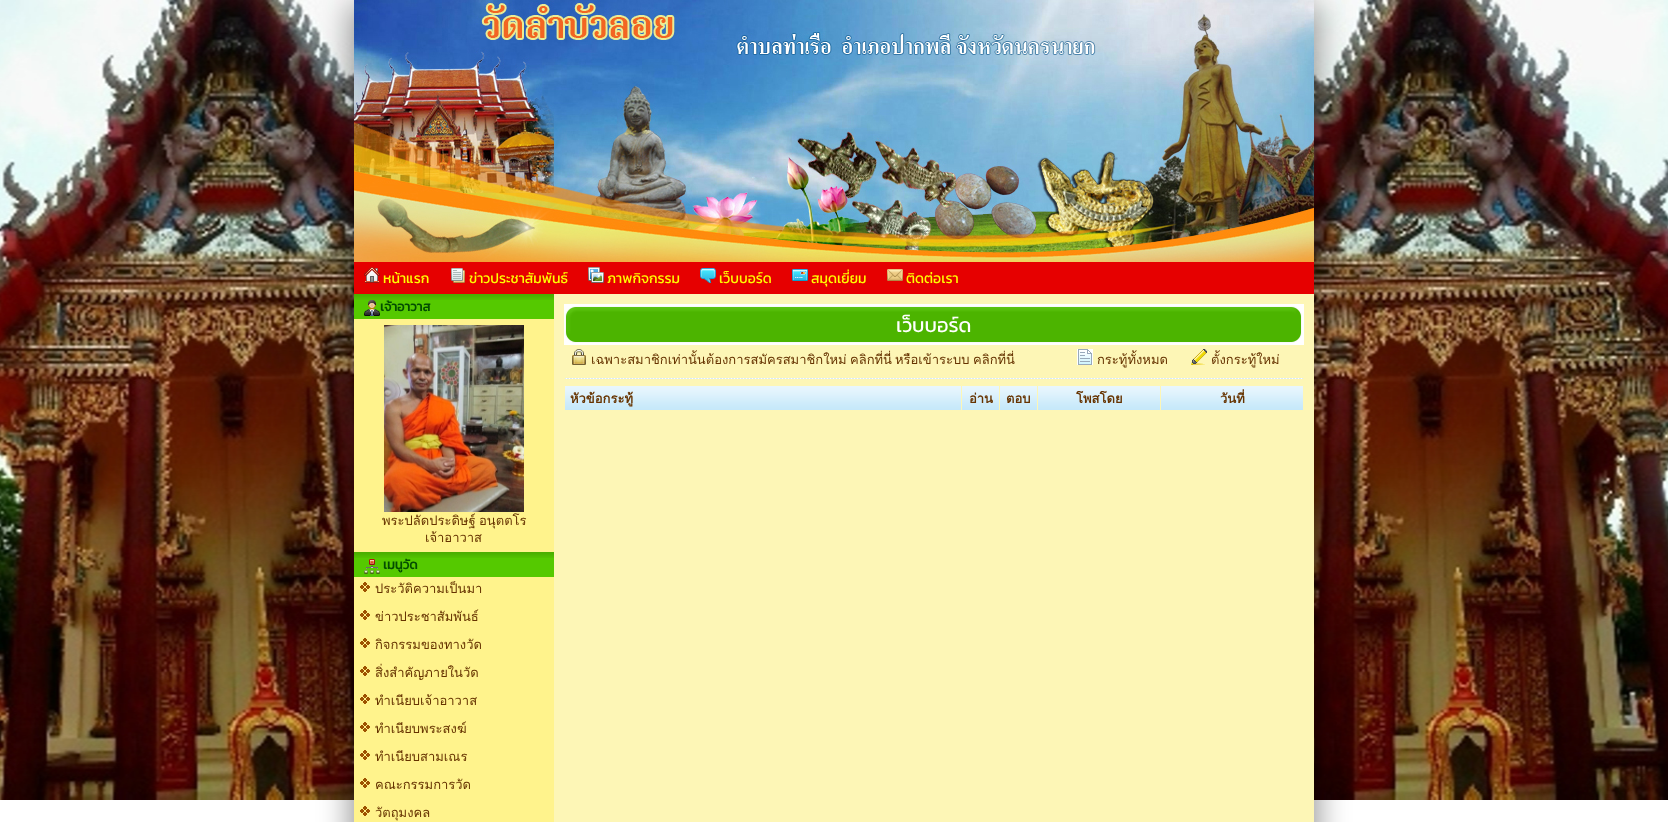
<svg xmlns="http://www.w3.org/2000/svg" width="1668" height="822">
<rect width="100%" height="100%" fill="#fff"/>
<image x="0" y="0" width="1668" height="800" href="media/1.png"/>
<rect x="349" y="5" width="970" height="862" fill="#00000063" filter="blur(15px)"/>
<image x="354" y="0" width="960" height="262" href="media/2.png"/>
<rect x="354" y="262" width="960" height="32" fill="#e60000"/>
<image x="364" y="267" width="16" height="16" href="media/3.png"/>
<text x="383" y="283" style="font-family:Kanit;font-size:14px;fill:#ff0">หน้าแรก</text>
<image x="451" y="268" width="14" height="15" href="media/4.png"/>
<text x="469" y="283" style="font-family:Kanit;font-size:14px;fill:#ff0">ข่าวประชาสัมพันธ์</text>
<image x="588" y="267" width="16" height="16" href="media/5.png"/>
<text x="607" y="283" style="font-family:Kanit;font-size:14px;fill:#ff0">ภาพกิจกรรม</text>
<image x="700" y="268" width="16" height="15" href="media/6.png"/>
<text x="719" y="283" style="font-family:Kanit;font-size:14px;fill:#ff0">เว็บบอร์ด</text>
<image x="792" y="269" width="16" height="12" href="media/7.png"/>
<text x="811" y="283" style="font-family:Kanit;font-size:14px;fill:#ff0">สมุดเยี่ยม</text>
<image x="887" y="269" width="16" height="12" href="media/8.png"/>
<text x="906" y="283" style="font-family:Kanit;font-size:14px;fill:#ff0">ติดต่อเรา</text>
<rect x="354" y="294" width="200" height="25" fill="#55c900"/>
<image x="354" y="294" width="200" height="6" href="media/9.png"/>
<image x="364" y="300" width="16" height="16" href="media/10.png"/>
<text x="380" y="311" style="font-family:Kanit;font-size:13px;font-weight:bold;fill:#034d01">เจ้าอาวาส</text>
<rect x="354" y="319" width="200" height="233" fill="#fff38c"/>
<image x="384" y="325" width="140" height="187" href="media/11.png"/>
<text x="382" y="525" style="font-family:Loma;font-size:13px;fill:#630">พระปลัดประดิษฐ์</text>
<text x="479" y="525" style="font-family:Loma;font-size:13px;fill:#630">อนุตตโร</text>
<text x="425" y="542" style="font-family:Loma;font-size:13px;fill:#630">เจ้าอาวาส</text>
<rect x="354" y="552" width="200" height="25" fill="#55c900"/>
<image x="354" y="552" width="200" height="6" href="media/9.png"/>
<image x="364" y="559" width="16" height="15" href="media/12.png"/>
<text x="383" y="569" style="font-family:Kanit;font-size:13px;font-weight:bold;fill:#034d01">เมนูวัด</text>
<rect x="354" y="577" width="200" height="245" fill="#fff38c"/>
<image x="360" y="582" width="10" height="10" href="media/13.png"/>
<text x="375" y="593" style="font-family:Loma;font-size:13px;fill:#630">ประวัติความเป็นมา</text>
<image x="360" y="610" width="10" height="10" href="media/13.png"/>
<text x="375" y="621" style="font-family:Loma;font-size:13px;fill:#630">ข่าวประชาสัมพันธ์</text>
<image x="360" y="638" width="10" height="10" href="media/13.png"/>
<text x="375" y="649" style="font-family:Loma;font-size:13px;fill:#630">กิจกรรมของทางวัด</text>
<image x="360" y="666" width="10" height="10" href="media/13.png"/>
<text x="375" y="677" style="font-family:Loma;font-size:13px;fill:#630">สิ่งสำคัญภายในวัด</text>
<image x="360" y="694" width="10" height="10" href="media/13.png"/>
<text x="375" y="705" style="font-family:Loma;font-size:13px;fill:#630">ทำเนียบเจ้าอาวาส</text>
<image x="360" y="722" width="10" height="10" href="media/13.png"/>
<text x="375" y="733" style="font-family:Loma;font-size:13px;fill:#630">ทำเนียบพระสงฆ์</text>
<image x="360" y="750" width="10" height="10" href="media/13.png"/>
<text x="375" y="761" style="font-family:Loma;font-size:13px;fill:#630">ทำเนียบสามเณร</text>
<image x="360" y="778" width="10" height="10" href="media/13.png"/>
<text x="375" y="789" style="font-family:Loma;font-size:13px;fill:#630">คณะกรรมการวัด</text>
<image x="360" y="806" width="10" height="10" href="media/13.png"/>
<text x="375" y="817" style="font-family:Loma;font-size:13px;fill:#630">วัตถุมงคล</text>
<rect x="554" y="294" width="760" height="528" fill="#fdf6b6"/>
<rect x="566" y="307" width="735" height="35" fill="#55c900"/>
<image x="564" y="304" width="25" height="41" href="media/14.png"/>
<image x="589" y="304" width="690" height="41" href="media/15.png"/>
<text x="896" y="332" style="font-family:Kanit;font-size:20px;fill:#fff">เว็บบอร์ด</text>
<image x="1279" y="304" width="25" height="41" href="media/16.png"/>
<image x="572" y="349" width="14" height="16" href="media/17.png"/>
<text x="591" y="364" style="font-family:Loma;font-size:13px;fill:#630">เฉพาะสมาชิกเท่านั้นต้องการสมัครสมาชิกใหม่</text>
<text x="850" y="364" style="font-family:Loma;font-size:13px;fill:#630">คลิกที่นี่</text>
<text x="895" y="364" style="font-family:Loma;font-size:13px;fill:#630">หรือเข้าระบบ</text>
<text x="973" y="364" style="font-family:Loma;font-size:13px;fill:#630">คลิกที่นี่</text>
<image x="1077" y="349" width="16" height="16" href="media/18.png"/>
<text x="1097" y="364" style="font-family:Loma;font-size:13px;fill:#630">กระทู้ทั้งหมด</text>
<image x="1191" y="349" width="16" height="16" href="media/19.png"/>
<text x="1211" y="364" style="font-family:Loma;font-size:13px;fill:#630">ตั้งกระทู้ใหม่</text>
<image x="565" y="378" width="738" height="1" href="media/20.png"/>
<image x="565" y="386" width="396" height="24" href="media/21.png"/>
<text x="570" y="403" style="font-family:Loma;font-size:13px;font-weight:bold;fill:#630">หัวข้อกระทู้</text>
<image x="962" y="386" width="37" height="24" href="media/22.png"/>
<text x="969" y="403" style="font-family:Loma;font-size:13px;font-weight:bold;fill:#630">อ่าน</text>
<image x="1000" y="386" width="37" height="24" href="media/22.png"/>
<text x="1006" y="403" style="font-family:Loma;font-size:13px;font-weight:bold;fill:#630">ตอบ</text>
<image x="1038" y="386" width="122" height="24" href="media/23.png"/>
<text x="1076" y="403" style="font-family:Loma;font-size:13px;font-weight:bold;fill:#630">โพสโดย</text>
<image x="1161" y="386" width="142" height="24" href="media/24.png"/>
<text x="1220" y="403" style="font-family:Loma;font-size:13px;font-weight:bold;fill:#630">วันที่</text>
</svg>
